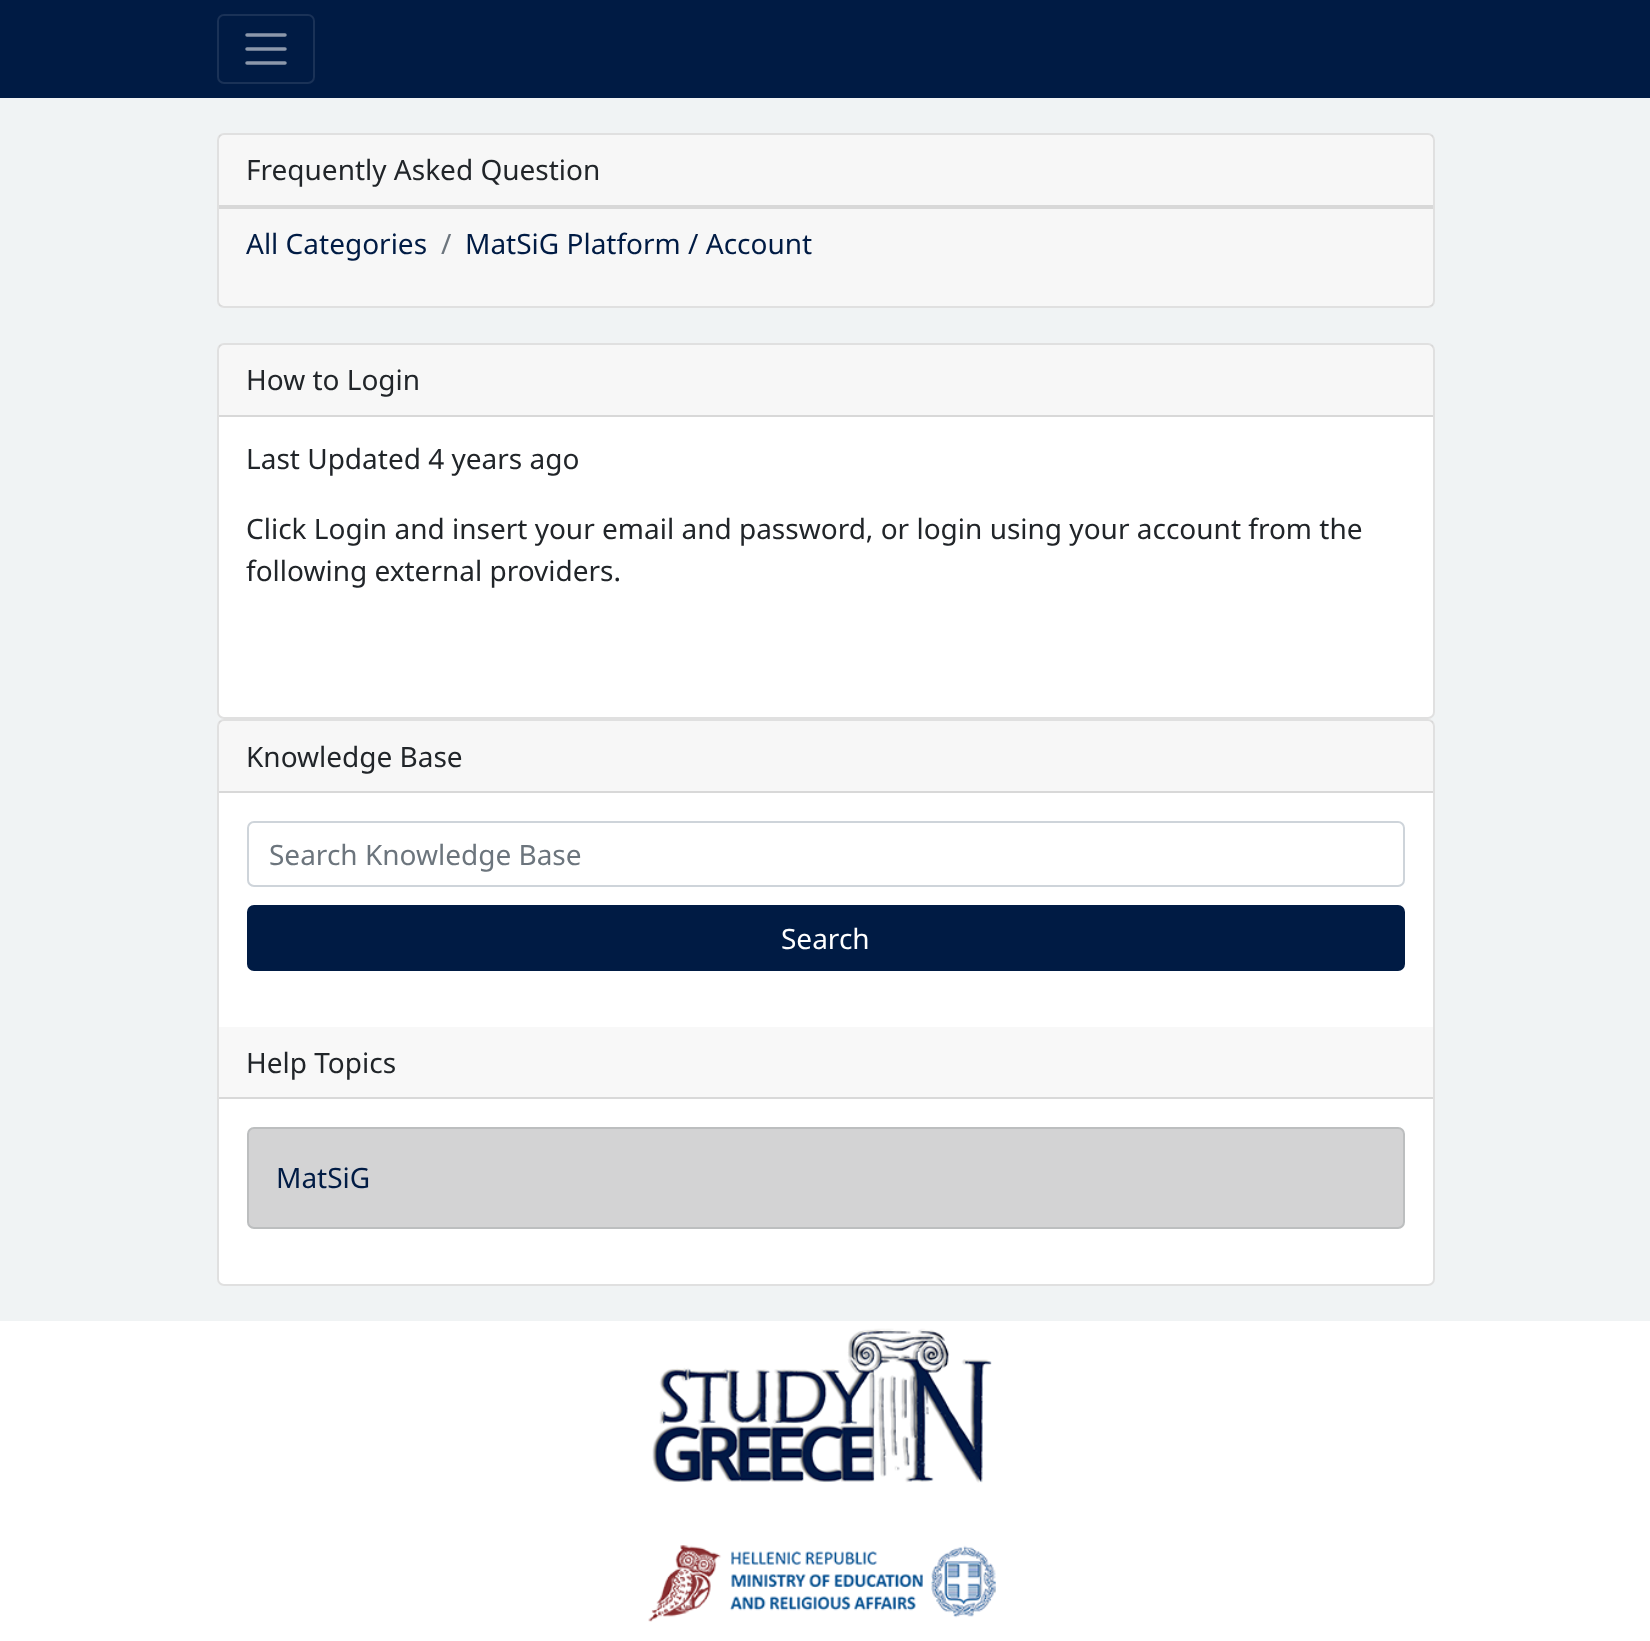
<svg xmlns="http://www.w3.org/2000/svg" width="1650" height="1641">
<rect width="100%" height="100%" fill="#f0f3f4"/>
<rect width="1650" height="98" fill="#001b44"/>
<rect x="218" y="15" width="96" height="68" rx="6" fill="none" stroke="#1a3257" stroke-width="2"/>
<path d="M247 35h38m-38 14h38m-38 14h38" fill="none" stroke="#8c98ab" stroke-width="3.5" stroke-linecap="round"/>
<rect x="217" y="133" width="1218" height="175" rx="7" fill="#fff"/>
<rect x="218" y="134" width="1216" height="173" rx="6" fill="none" stroke="#0000001f" stroke-width="2"/>
<rect x="219" y="135" width="1214" height="70" fill="#00000008"/>
<rect x="219" y="205" width="1214" height="4" fill="#d8d8d8"/>
<text x="246" y="180" style="font-family:Noto Sans;font-size:28px;fill:#212529">Frequently Asked Question</text>
<rect x="219" y="209" width="1214" height="97" fill="#00000008"/>
<text x="246" y="254" style="font-family:Noto Sans;font-size:28px;fill:#001b44">All Categories</text>
<text x="441" y="254" style="font-family:Noto Sans;font-size:28px;fill:#6c757d">/</text>
<text x="465" y="254" style="font-family:Noto Sans;font-size:28px;fill:#001b44">MatSiG Platform / Account</text>
<rect x="217" y="343" width="1218" height="376" rx="7" fill="#fff"/>
<rect x="218" y="344" width="1216" height="374" rx="6" fill="none" stroke="#0000001f" stroke-width="2"/>
<rect x="219" y="345" width="1214" height="70" fill="#00000008"/>
<rect x="219" y="415" width="1214" height="2" fill="#d8d8d8"/>
<text x="246" y="390" style="font-family:Noto Sans;font-size:28px;fill:#212529">How to Login</text>
<text x="246" y="469" style="font-family:Noto Sans;font-size:28px;fill:#212529">Last Updated 4 years ago</text>
<text x="246" y="539" style="font-family:Noto Sans;font-size:28px;fill:#212529">Click Login and insert your email and password, or login using your account from the</text>
<text x="246" y="581" style="font-family:Noto Sans;font-size:28px;fill:#212529">following external providers.</text>
<rect x="217" y="719" width="1218" height="567" rx="7" fill="#fff"/>
<rect x="218" y="720" width="1216" height="565" rx="6" fill="none" stroke="#0000001f" stroke-width="2"/>
<rect x="219" y="721" width="1214" height="70" fill="#00000008"/>
<rect x="219" y="791" width="1214" height="2" fill="#d8d8d8"/>
<text x="246" y="767" style="font-family:Noto Sans;font-size:28px;fill:#212529">Knowledge Base</text>
<rect x="248" y="822" width="1156" height="64" rx="6" fill="none" stroke="#ced4da" stroke-width="2"/>
<text x="269" y="865" style="font-family:Noto Sans;font-size:28px;fill:#6c757d">Search Knowledge Base</text>
<rect x="248" y="906" width="1156" height="64" rx="6" fill="#001b44" stroke="#001b44" stroke-width="2"/>
<text x="781" y="949" style="font-family:Noto Sans;font-size:28px;fill:#fff">Search</text>
<rect x="219" y="1027" width="1214" height="70" fill="#f8f8f8"/>
<rect x="219" y="1097" width="1214" height="2" fill="#d9d9d9"/>
<text x="246" y="1073" style="font-family:Noto Sans;font-size:28px;fill:#212529">Help Topics</text>
<rect x="248" y="1128" width="1156" height="100" rx="6" fill="#d3d3d4" stroke="#bcbebf" stroke-width="2"/>
<text x="276" y="1188" style="font-family:Noto Sans;font-size:28px;fill:#001b44">MatSiG</text>
<rect y="1321" width="1650" height="320" fill="#fff"/>
<image x="652" y="1328" width="340" height="155" href="media/1.png"/>
<image x="648" y="1545" width="348" height="77" href="media/2.png"/>
</svg>
